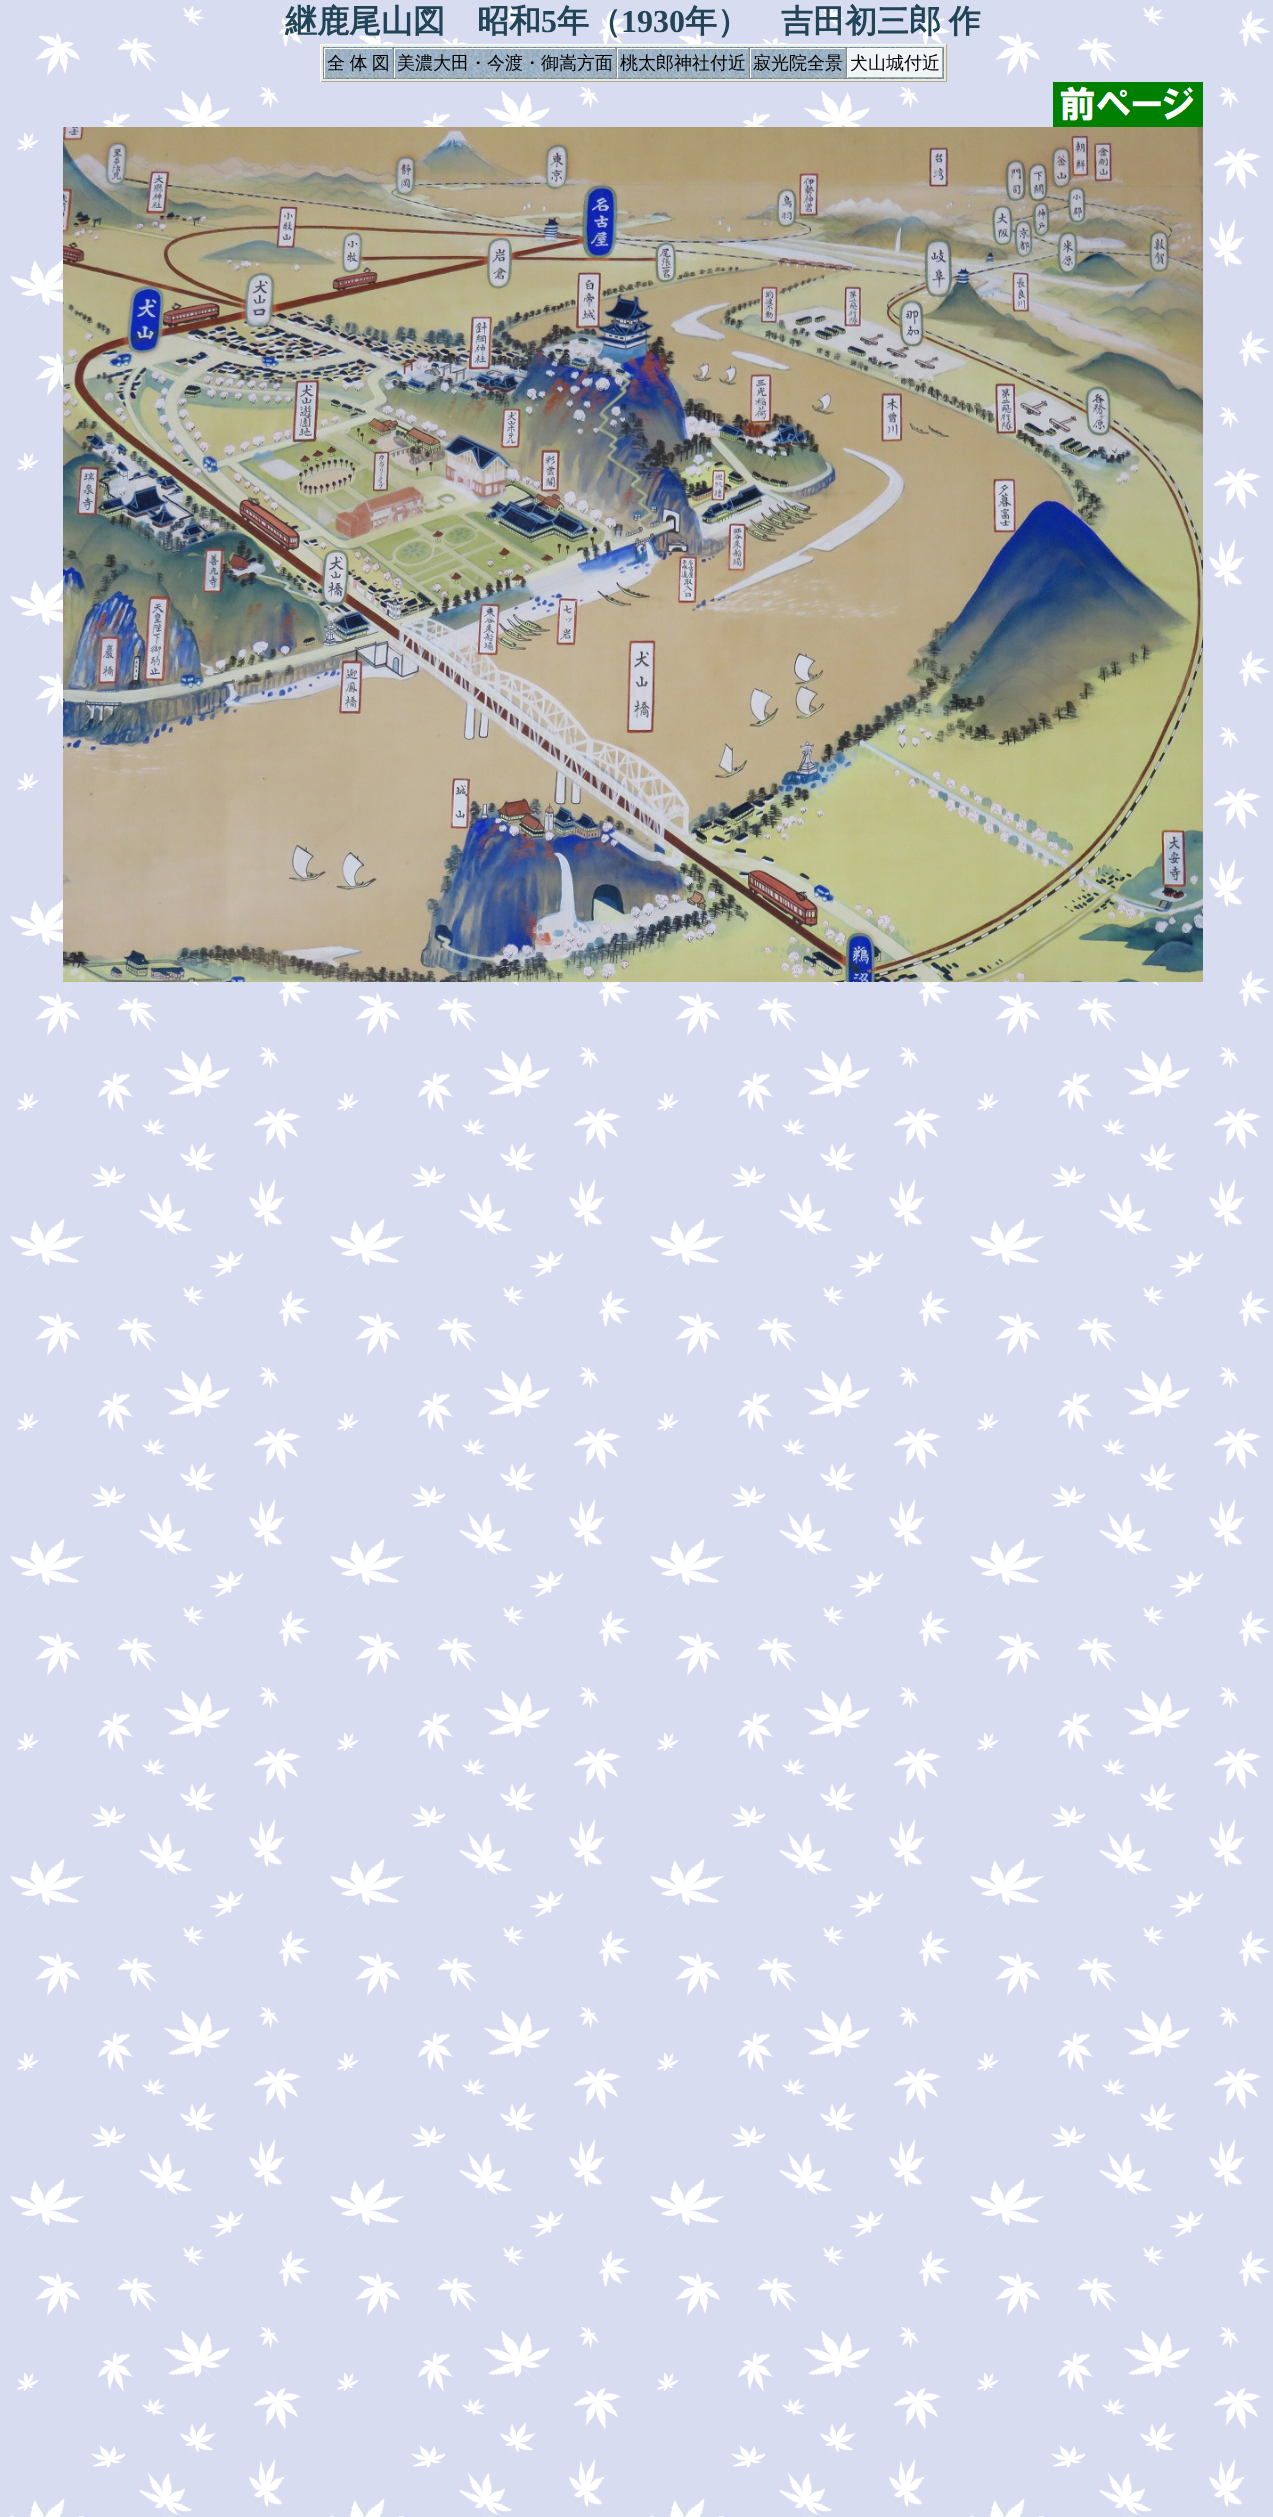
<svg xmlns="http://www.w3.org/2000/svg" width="1273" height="2517">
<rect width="100%" height="100%" fill="#fff"/>
<image x="0" y="0" width="1273" height="2517" href="media/1.png"/>
<text x="285" y="32" style="font-family:WenQuanYi Zen Hei;font-size:32px;font-weight:bold;fill:#214457">継鹿尾山図　昭和</text>
<text x="541" y="32" style="font-family:Liberation Serif;font-size:32px;font-weight:bold;fill:#214457">5</text>
<text x="557" y="32" style="font-family:WenQuanYi Zen Hei;font-size:32px;font-weight:bold;fill:#214457">年（</text>
<text x="621" y="32" style="font-family:Liberation Serif;font-size:32px;font-weight:bold;fill:#214457">1930</text>
<text x="685" y="32" word-spacing="-2" style="font-family:WenQuanYi Zen Hei;font-size:32px;font-weight:bold;fill:#214457">年）　吉田初三郎 作</text>
<rect x="321" y="45" width="625" height="36" fill="#ecead8"/>
<rect x="320" y="44" width="627" height="1" fill="#fff"/>
<rect x="946" y="44" width="1" height="38" fill="#aca899"/>
<rect x="320" y="81" width="627" height="1" fill="#aca899"/>
<rect x="320" y="44" width="1" height="38" fill="#fff"/>
<image x="323" y="47" width="621" height="32" href="media/2.png"/>
<rect x="325" y="49" width="67" height="28" fill="#ffffff4d"/>
<rect x="324" y="48" width="69" height="1" fill="#fff"/>
<rect x="392" y="48" width="1" height="30" fill="#aca899"/>
<rect x="324" y="77" width="69" height="1" fill="#aca899"/>
<rect x="324" y="48" width="1" height="30" fill="#fff"/>
<text x="327" y="69" word-spacing="-1" style="font-family:WenQuanYi Zen Hei;font-size:18px;font-weight:500;fill:#000">全 体 図</text>
<rect x="395" y="49" width="220" height="28" fill="#ffffff4d"/>
<rect x="394" y="48" width="222" height="1" fill="#fff"/>
<rect x="615" y="48" width="1" height="30" fill="#aca899"/>
<rect x="394" y="77" width="222" height="1" fill="#aca899"/>
<rect x="394" y="48" width="1" height="30" fill="#fff"/>
<text x="397" y="69" style="font-family:WenQuanYi Zen Hei;font-size:18px;font-weight:500;fill:#000">美濃大田・今渡・御嵩方面</text>
<rect x="618" y="49" width="130" height="28" fill="#ffffff4d"/>
<rect x="617" y="48" width="132" height="1" fill="#fff"/>
<rect x="748" y="48" width="1" height="30" fill="#aca899"/>
<rect x="617" y="77" width="132" height="1" fill="#aca899"/>
<rect x="617" y="48" width="1" height="30" fill="#fff"/>
<text x="620" y="69" style="font-family:WenQuanYi Zen Hei;font-size:18px;font-weight:500;fill:#000">桃太郎神社付近</text>
<rect x="751" y="49" width="94" height="28" fill="#ffffff4d"/>
<rect x="750" y="48" width="96" height="1" fill="#fff"/>
<rect x="845" y="48" width="1" height="30" fill="#aca899"/>
<rect x="750" y="77" width="96" height="1" fill="#aca899"/>
<rect x="750" y="48" width="1" height="30" fill="#fff"/>
<text x="753" y="69" style="font-family:WenQuanYi Zen Hei;font-size:18px;font-weight:500;fill:#000">寂光院全景</text>
<rect x="848" y="49" width="94" height="28" fill="#ffffffe6"/>
<rect x="847" y="48" width="96" height="1" fill="#fff"/>
<rect x="942" y="48" width="1" height="30" fill="#aca899"/>
<rect x="847" y="77" width="96" height="1" fill="#aca899"/>
<rect x="847" y="48" width="1" height="30" fill="#fff"/>
<text x="850" y="69" style="font-family:WenQuanYi Zen Hei;font-size:18px;font-weight:500;fill:#000">犬山城付近</text>
<image x="1053" y="82" width="150" height="45" href="media/3.png"/>
<image x="63" y="127" width="1140" height="855" href="media/4.png"/>
</svg>
